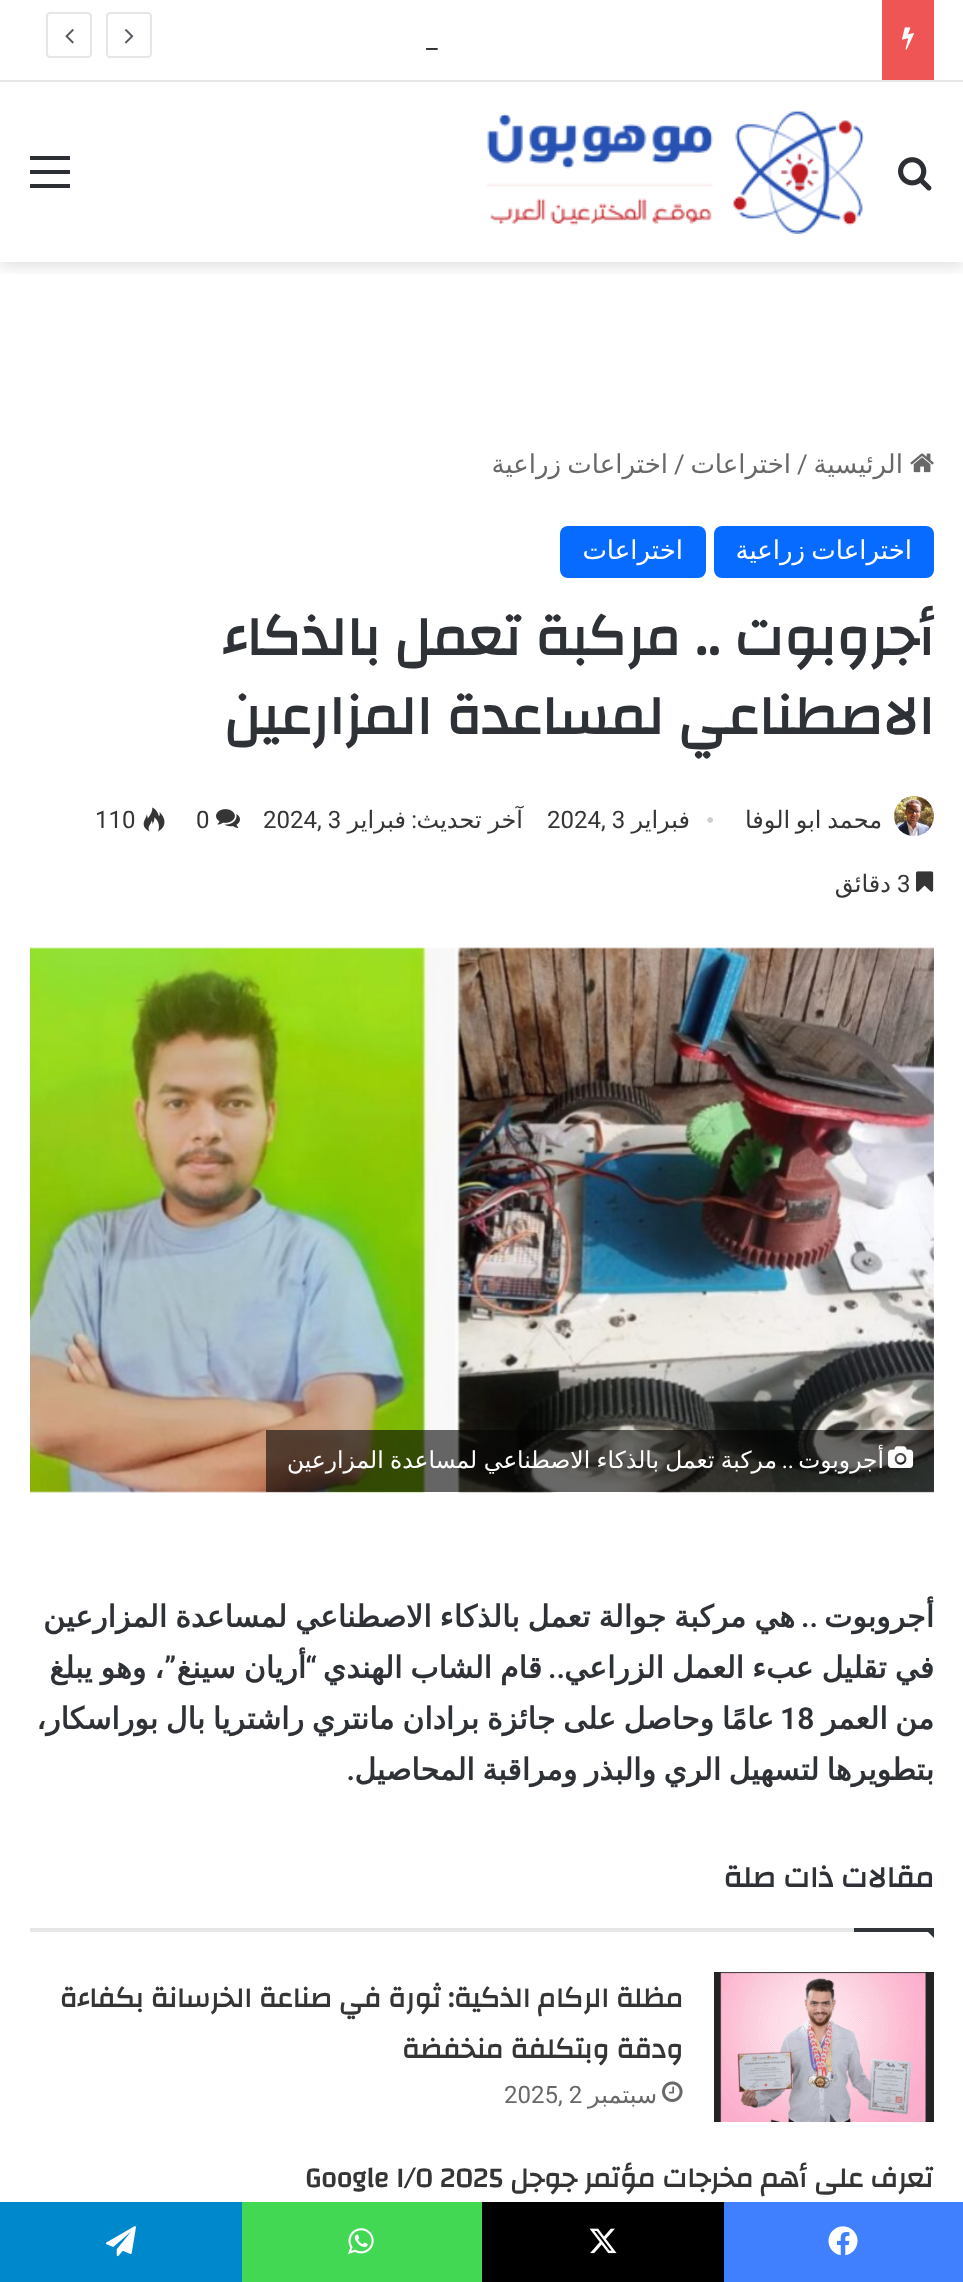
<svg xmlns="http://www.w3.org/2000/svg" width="963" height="2282">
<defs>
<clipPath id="clip1"><rect x="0" y="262" width="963" height="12"/></clipPath>
</defs>
<rect width="100%" height="100%" fill="#fff"/>
<g clip-path="url(#clip1)">
<rect y="88" width="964" height="180" fill="#0000001a" filter="blur(7px)"/>
</g>
<rect x="9" y="79" width="946" height="1" fill="#fff"/>
<rect y="80" width="963" height="2" fill="#e6e6e6"/>
<rect x="882" width="52" height="80" fill="#f05555"/>
<image x="902" y="27" width="12" height="23" href="media/1.png"/>
<text x="426" y="48" style="font-family:Roboto;font-size:26px;fill:#2e3136">_</text>
<path d="M148 57h-38c-1.5 0-3-1.5-3-3v-38c0-1.5 1.5-3 3-3h38c1.5 0 3 1.5 3 3v38c0 1.5-1.5 3-3 3z" fill="none" stroke="#e6e6e6" stroke-width="2"/>
<image x="124" y="29" width="10" height="15" href="media/2.png"/>
<path d="M88 57h-38c-1.5 0-3-1.5-3-3v-38c0-1.5 1.5-3 3-3h38c1.5 0 3 1.5 3 3v38c0 1.5-1.5 3-3 3z" fill="none" stroke="#e6e6e6" stroke-width="2"/>
<image x="65" y="29" width="9" height="15" href="media/3.png"/>
<image x="898" y="157" width="34" height="34" href="media/4.png"/>
<image x="486" y="110" width="378" height="124" href="media/5.png"/>
<rect x="30" y="170" width="40" height="4" fill="#2c2f34"/>
<rect x="30" y="156" width="40" height="4" fill="#2c2f34"/>
<rect x="30" y="184" width="40" height="4" fill="#2c2f34"/>
<image x="910" y="453" width="24" height="20" href="media/6.png"/>
<text x="903" y="473" style="font-family:DejaVu Sans;font-size:26px;direction:rtl;fill:#686868">الرئيسية</text>
<text x="797" y="473" style="font-family:Roboto;font-size:26px;fill:#686868">/</text>
<text x="791" y="473" style="font-family:DejaVu Sans;font-size:26px;direction:rtl;fill:#686868">اختراعات</text>
<text x="674" y="473" style="font-family:Roboto;font-size:26px;fill:#686868">/</text>
<text x="668" y="473" word-spacing="-2" style="font-family:DejaVu Sans;font-size:26px;direction:rtl;fill:#686868">اختراعات زراعية</text>
<rect x="714" y="526" width="220" height="52" rx="8" fill="#086bff"/>
<text x="912" y="559" word-spacing="-2" style="font-family:DejaVu Sans;font-size:26px;direction:rtl;fill:#fff">اختراعات زراعية</text>
<rect x="560" y="526" width="146" height="52" rx="8" fill="#086bff"/>
<text x="683" y="559" style="font-family:DejaVu Sans;font-size:26px;direction:rtl;fill:#fff">اختراعات</text>
<text x="934" y="655" style="font-family:Changa;font-size:56px;font-weight:bold;direction:rtl;fill:#2e3136">أجروبوت .. مركبة تعمل بالذكاء</text>
<text x="934" y="734" style="font-family:Changa;font-size:56px;font-weight:bold;direction:rtl;fill:#2e3136">الاصطناعي لمساعدة المزارعين</text>
<image x="894" y="796" width="40" height="40" href="media/7.png"/>
<text x="882" y="828" word-spacing="-2" style="font-family:DejaVu Sans;font-size:24px;direction:rtl;fill:#353535">محمد ابو الوفا</text>
<text x="706" y="828" style="font-family:Liberation Serif;font-size:24px;fill:#cdcdcd">•</text>
<text x="690" y="828" style="font-family:DejaVu Sans;font-size:24px;direction:rtl;fill:#353535">فبراير</text>
<text x="547" y="828" style="font-family:Roboto;font-size:24px;fill:#353535">2024, 3</text>
<text x="523" y="828" word-spacing="-1" style="font-family:DejaVu Sans;font-size:24px;direction:rtl;fill:#353535">آخر تحديث</text>
<text x="417" y="828" style="font-family:Roboto;font-size:24px;direction:rtl;fill:#353535">:</text>
<text x="406" y="828" style="font-family:DejaVu Sans;font-size:24px;direction:rtl;fill:#353535">فبراير</text>
<text x="263" y="828" style="font-family:Roboto;font-size:24px;fill:#353535">2024, 3</text>
<image x="216" y="809" width="24" height="19" href="media/8.png"/>
<text x="196" y="828" style="font-family:Roboto;font-size:24px;fill:#353535">0</text>
<image x="143" y="807" width="22" height="25" href="media/9.png"/>
<text x="95" y="828" style="font-family:Roboto;font-size:24px;fill:#353535">110</text>
<image x="916" y="871" width="18" height="21" href="media/10.png"/>
<text x="897" y="892" style="font-family:Roboto;font-size:24px;fill:#353535">3</text>
<text x="891" y="892" style="font-family:DejaVu Sans;font-size:24px;direction:rtl;fill:#353535">دقائق</text>
<image x="30" y="947" width="904" height="546" href="media/11.png"/>
<rect x="266" y="1430" width="668" height="62" fill="#03030399"/>
<image x="888" y="1446" width="26" height="22" href="media/12.png"/>
<text x="884" y="1468" style="font-family:DejaVu Sans;font-size:23.4px;direction:rtl;fill:#fff">أجروبوت</text>
<text x="794" y="1468" style="font-family:Roboto;font-size:23.4px;direction:rtl;fill:#fff">..</text>
<text x="777" y="1468" word-spacing="-1" style="font-family:DejaVu Sans;font-size:23.4px;direction:rtl;fill:#fff">مركبة تعمل بالذكاء الاصطناعي لمساعدة المزارعين</text>
<text x="934" y="1627" style="font-family:DejaVu Sans;font-size:30px;font-weight:bold;direction:rtl;fill:#2e3136">أجروبوت</text>
<text x="795" y="1627" word-spacing="-1.5" style="font-family:DejaVu Sans;font-size:30px;font-weight:bold;direction:rtl;fill:#2e3136">هي مركبة جوالة تعمل بالذكاء الاصطناعي لمساعدة المزارعين</text>
<text x="818" y="1627" style="font-family:Roboto;font-size:30px;font-weight:600;direction:rtl;fill:#2e3136">..</text>
<text x="934" y="1678" word-spacing="-1.5" style="font-family:DejaVu Sans;font-size:30px;font-weight:bold;direction:rtl;fill:#2e3136">في تقليل عبء العمل الزراعي</text>
<text x="565" y="1678" style="font-family:Roboto;font-size:30px;font-weight:600;direction:rtl;fill:#2e3136">..</text>
<text x="542" y="1678" word-spacing="-1.5" style="font-family:DejaVu Sans;font-size:30px;font-weight:bold;direction:rtl;fill:#2e3136">قام الشاب الهندي</text>
<text x="317" y="1678" style="font-family:Roboto;font-size:30px;font-weight:600;direction:rtl;fill:#2e3136">“</text>
<text x="306" y="1678" word-spacing="-1.5" style="font-family:DejaVu Sans;font-size:30px;font-weight:bold;direction:rtl;fill:#2e3136">أريان سينغ</text>
<text x="164" y="1678" word-spacing="-1.5" style="font-family:DejaVu Sans;font-size:30px;font-weight:bold;direction:rtl;fill:#2e3136">، وهو يبلغ</text>
<text x="176" y="1678" style="font-family:Roboto;font-size:30px;font-weight:600;direction:rtl;fill:#2e3136">”</text>
<text x="934" y="1729" word-spacing="-2" style="font-family:DejaVu Sans;font-size:30px;font-weight:bold;direction:rtl;fill:#2e3136">من العمر</text>
<text x="774" y="1729" word-spacing="-1.75" style="font-family:DejaVu Sans;font-size:30px;font-weight:bold;direction:rtl;fill:#2e3136">عامًا وحاصل على جائزة برادان مانتري راشتريا بال بوراسكار،</text>
<text x="780" y="1729" style="font-family:Roboto;font-size:30px;font-weight:600;fill:#2e3136">18</text>
<text x="934" y="1780" word-spacing="-2" style="font-family:DejaVu Sans;font-size:30px;font-weight:bold;direction:rtl;fill:#2e3136">بتطويرها لتسهيل الري والبذر ومراقبة المحاصيل</text>
<text x="355" y="1780" style="font-family:Roboto;font-size:30px;font-weight:600;direction:rtl;fill:#2e3136">.</text>
<rect x="30" y="1928" width="824" height="4" fill="#e6e6e6"/>
<text x="934" y="1887" style="font-family:Changa;font-size:30px;font-weight:bold;direction:rtl;fill:#2e3136">مقالات ذات صلة</text>
<path d="M924 1928h10v10z" fill="#303338"/>
<rect x="854" y="1928" width="80" height="4" fill="#303338"/>
<image x="714" y="1972" width="220" height="150" href="media/13.png"/>
<text x="683" y="2007" style="font-family:Changa;font-size:28px;font-weight:bold;direction:rtl;fill:#353535">مظلة الركام الذكية: ثورة في صناعة الخرسانة بكفاءة</text>
<text x="683" y="2058" style="font-family:Changa;font-size:28px;font-weight:bold;direction:rtl;fill:#353535">ودقة وبتكلفة منخفضة</text>
<image x="662" y="2081" width="21" height="21" href="media/14.png"/>
<text x="657" y="2103" style="font-family:DejaVu Sans;font-size:24px;direction:rtl;fill:#686868">سبتمبر</text>
<text x="504" y="2103" style="font-family:Roboto;font-size:24px;fill:#686868">2025, 2</text>
<text x="933" y="2187" style="font-family:Changa;font-size:28px;font-weight:bold;direction:rtl;fill:#353535">تعرف على أهم مخرجات مؤتمر جوجل</text>
<text x="305" y="2187" style="font-family:Changa;font-size:28px;font-weight:bold;fill:#353535">Google I/O 2025</text>
<rect x="724" y="2202" width="239" height="80" fill="#4080ff"/>
<image x="828" y="2226" width="30" height="30" href="media/15.png"/>
<rect x="482" y="2202" width="242" height="80" fill="#000"/>
<image x="589" y="2228" width="28" height="26" href="media/16.png"/>
<rect x="242" y="2202" width="240" height="80" fill="#43d854"/>
<image x="348" y="2228" width="26" height="26" href="media/17.png"/>
<rect y="2202" width="242" height="80" fill="#08c"/>
<image x="106" y="2226" width="30" height="31" href="media/18.png"/>
</svg>
